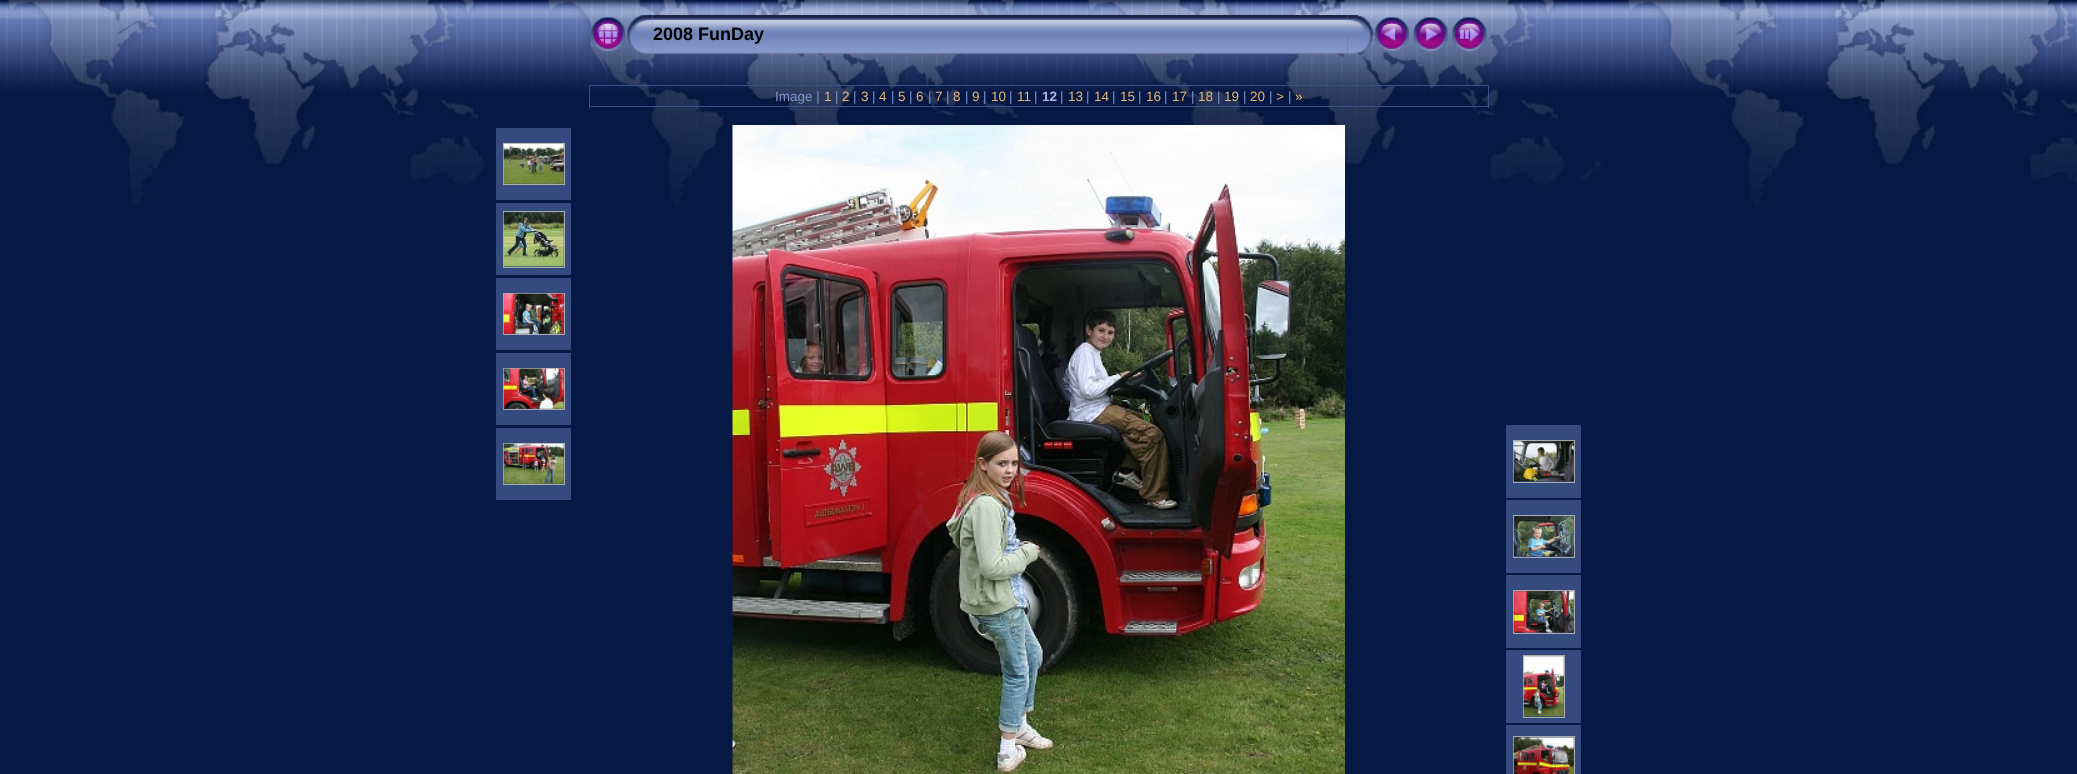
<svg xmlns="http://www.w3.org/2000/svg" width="2077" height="774">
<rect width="100%" height="100%" fill="#061844"/>
<image x="0" y="0" width="2077" height="205" href="media/1.png"/>
<image x="591" y="17" width="35" height="35" href="media/2.png"/>
<image x="652" y="15" width="696" height="39" href="media/4.png"/>
<image x="627" y="15" width="26" height="39" href="media/3.png"/>
<text x="653" y="40" style="font-family:Liberation Sans;font-size:18px;font-weight:bold;fill:#000">2008 FunDay</text>
<image x="1347" y="15" width="26" height="39" href="media/5.png"/>
<image x="1374" y="17" width="35" height="35" href="media/6.png"/>
<image x="1413" y="17" width="35" height="35" href="media/7.png"/>
<image x="1452" y="17" width="35" height="35" href="media/8.png"/>
<rect x="589" y="85" width="900" height="1" fill="#38518c"/>
<rect x="1488" y="85" width="1" height="23" fill="#38518c"/>
<rect x="589" y="106" width="900" height="1" fill="#38518c"/>
<rect x="589" y="85" width="1" height="23" fill="#38518c"/>
<text x="775" y="101" style="font-family:Liberation Sans;font-size:13.5px;fill:#7e93cc">Image |</text>
<text x="824" y="101" style="font-family:Liberation Sans;font-size:13.5px;fill:#e5b673">1</text>
<text x="835" y="101" style="font-family:Liberation Sans;font-size:13.5px;fill:#7e93cc">|</text>
<text x="842" y="101" style="font-family:Liberation Sans;font-size:13.5px;fill:#e5b673">2</text>
<text x="853" y="101" style="font-family:Liberation Sans;font-size:13.5px;fill:#7e93cc">|</text>
<text x="861" y="101" style="font-family:Liberation Sans;font-size:13.5px;fill:#e5b673">3</text>
<text x="872" y="101" style="font-family:Liberation Sans;font-size:13.5px;fill:#7e93cc">|</text>
<text x="879" y="101" style="font-family:Liberation Sans;font-size:13.5px;fill:#e5b673">4</text>
<text x="891" y="101" style="font-family:Liberation Sans;font-size:13.5px;fill:#7e93cc">|</text>
<text x="898" y="101" style="font-family:Liberation Sans;font-size:13.5px;fill:#e5b673">5</text>
<text x="909" y="101" style="font-family:Liberation Sans;font-size:13.5px;fill:#7e93cc">|</text>
<text x="916" y="101" style="font-family:Liberation Sans;font-size:13.5px;fill:#e5b673">6</text>
<text x="928" y="101" style="font-family:Liberation Sans;font-size:13.5px;fill:#7e93cc">|</text>
<text x="935" y="101" style="font-family:Liberation Sans;font-size:13.5px;fill:#e5b673">7</text>
<text x="946" y="101" style="font-family:Liberation Sans;font-size:13.5px;fill:#7e93cc">|</text>
<text x="953" y="101" style="font-family:Liberation Sans;font-size:13.5px;fill:#e5b673">8</text>
<text x="965" y="101" style="font-family:Liberation Sans;font-size:13.5px;fill:#7e93cc">|</text>
<text x="972" y="101" style="font-family:Liberation Sans;font-size:13.5px;fill:#e5b673">9</text>
<text x="983" y="101" style="font-family:Liberation Sans;font-size:13.5px;fill:#7e93cc">|</text>
<text x="991" y="101" style="font-family:Liberation Sans;font-size:13.5px;fill:#e5b673">10</text>
<text x="1009" y="101" style="font-family:Liberation Sans;font-size:13.5px;fill:#7e93cc">|</text>
<text x="1017" y="101" style="font-family:Liberation Sans;font-size:13.5px;fill:#e5b673">11</text>
<text x="1034" y="101" style="font-family:Liberation Sans;font-size:13.5px;fill:#7e93cc">|</text>
<text x="1042" y="101" style="font-family:Liberation Sans;font-size:13.5px;font-weight:bold;fill:#a9bae7">12</text>
<text x="1060" y="101" style="font-family:Liberation Sans;font-size:13.5px;fill:#7e93cc">|</text>
<text x="1068" y="101" style="font-family:Liberation Sans;font-size:13.5px;fill:#e5b673">13</text>
<text x="1086" y="101" style="font-family:Liberation Sans;font-size:13.5px;fill:#7e93cc">|</text>
<text x="1094" y="101" style="font-family:Liberation Sans;font-size:13.5px;fill:#e5b673">14</text>
<text x="1112" y="101" style="font-family:Liberation Sans;font-size:13.5px;fill:#7e93cc">|</text>
<text x="1120" y="101" style="font-family:Liberation Sans;font-size:13.5px;fill:#e5b673">15</text>
<text x="1138" y="101" style="font-family:Liberation Sans;font-size:13.5px;fill:#7e93cc">|</text>
<text x="1146" y="101" style="font-family:Liberation Sans;font-size:13.5px;fill:#e5b673">16</text>
<text x="1164" y="101" style="font-family:Liberation Sans;font-size:13.5px;fill:#7e93cc">|</text>
<text x="1172" y="101" style="font-family:Liberation Sans;font-size:13.5px;fill:#e5b673">17</text>
<text x="1191" y="101" style="font-family:Liberation Sans;font-size:13.5px;fill:#7e93cc">|</text>
<text x="1198" y="101" style="font-family:Liberation Sans;font-size:13.5px;fill:#e5b673">18</text>
<text x="1217" y="101" style="font-family:Liberation Sans;font-size:13.5px;fill:#7e93cc">|</text>
<text x="1224" y="101" style="font-family:Liberation Sans;font-size:13.5px;fill:#e5b673">19</text>
<text x="1243" y="101" style="font-family:Liberation Sans;font-size:13.5px;fill:#7e93cc">|</text>
<text x="1250" y="101" style="font-family:Liberation Sans;font-size:13.5px;fill:#e5b673">20</text>
<text x="1269" y="101" style="font-family:Liberation Sans;font-size:13.5px;fill:#7e93cc">|</text>
<text x="1276" y="101" style="font-family:Liberation Sans;font-size:13.5px;fill:#e5b673">&gt;</text>
<text x="1288" y="101" style="font-family:Liberation Sans;font-size:13.5px;fill:#7e93cc">|</text>
<text x="1295" y="101" style="font-family:Liberation Sans;font-size:13.5px;fill:#e5b673">»</text>
<rect x="496" y="128" width="75" height="72" fill="#354b7f"/>
<rect x="503.5" y="143.5" width="61" height="41" fill="none" stroke="#aaa"/>
<image x="503" y="143" width="61" height="41" href="media/9.png"/>
<rect x="496" y="203" width="75" height="72" fill="#354b7f"/>
<rect x="503.5" y="211.5" width="61" height="56" fill="none" stroke="#aaa"/>
<image x="503" y="212" width="61" height="55" href="media/10.png"/>
<rect x="496" y="278" width="75" height="72" fill="#354b7f"/>
<rect x="503.5" y="293.5" width="61" height="41" fill="none" stroke="#aaa"/>
<image x="503" y="293" width="61" height="41" href="media/11.png"/>
<rect x="496" y="353" width="75" height="72" fill="#354b7f"/>
<rect x="503.5" y="368.5" width="61" height="41" fill="none" stroke="#aaa"/>
<image x="503" y="368" width="61" height="41" href="media/12.png"/>
<rect x="496" y="428" width="75" height="72" fill="#354b7f"/>
<rect x="503.5" y="443.5" width="61" height="41" fill="none" stroke="#aaa"/>
<image x="503" y="443" width="61" height="41" href="media/13.png"/>
<image x="732" y="125" width="613" height="649" href="media/14.png"/>
<rect x="1506" y="425" width="75" height="73" fill="#354b7f"/>
<rect x="1513.5" y="440.5" width="61" height="42" fill="none" stroke="#aaa"/>
<image x="1513" y="441" width="61" height="41" href="media/15.png"/>
<rect x="1506" y="500" width="75" height="73" fill="#354b7f"/>
<rect x="1513.5" y="515.5" width="61" height="42" fill="none" stroke="#aaa"/>
<image x="1513" y="516" width="61" height="41" href="media/16.png"/>
<rect x="1506" y="575" width="75" height="73" fill="#354b7f"/>
<rect x="1513.5" y="590.5" width="61" height="43" fill="none" stroke="#aaa"/>
<image x="1513" y="591" width="61" height="42" href="media/17.png"/>
<rect x="1506" y="650" width="75" height="73" fill="#354b7f"/>
<rect x="1523.5" y="655.5" width="41" height="62" fill="none" stroke="#aaa"/>
<image x="1523" y="656" width="41" height="61" href="media/18.png"/>
<rect x="1506" y="725" width="75" height="49" fill="#354b7f"/>
<rect x="1513.5" y="736.5" width="61" height="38" fill="none" stroke="#aaa"/>
<image x="1513" y="737" width="61" height="37" href="media/19.png"/>
</svg>
